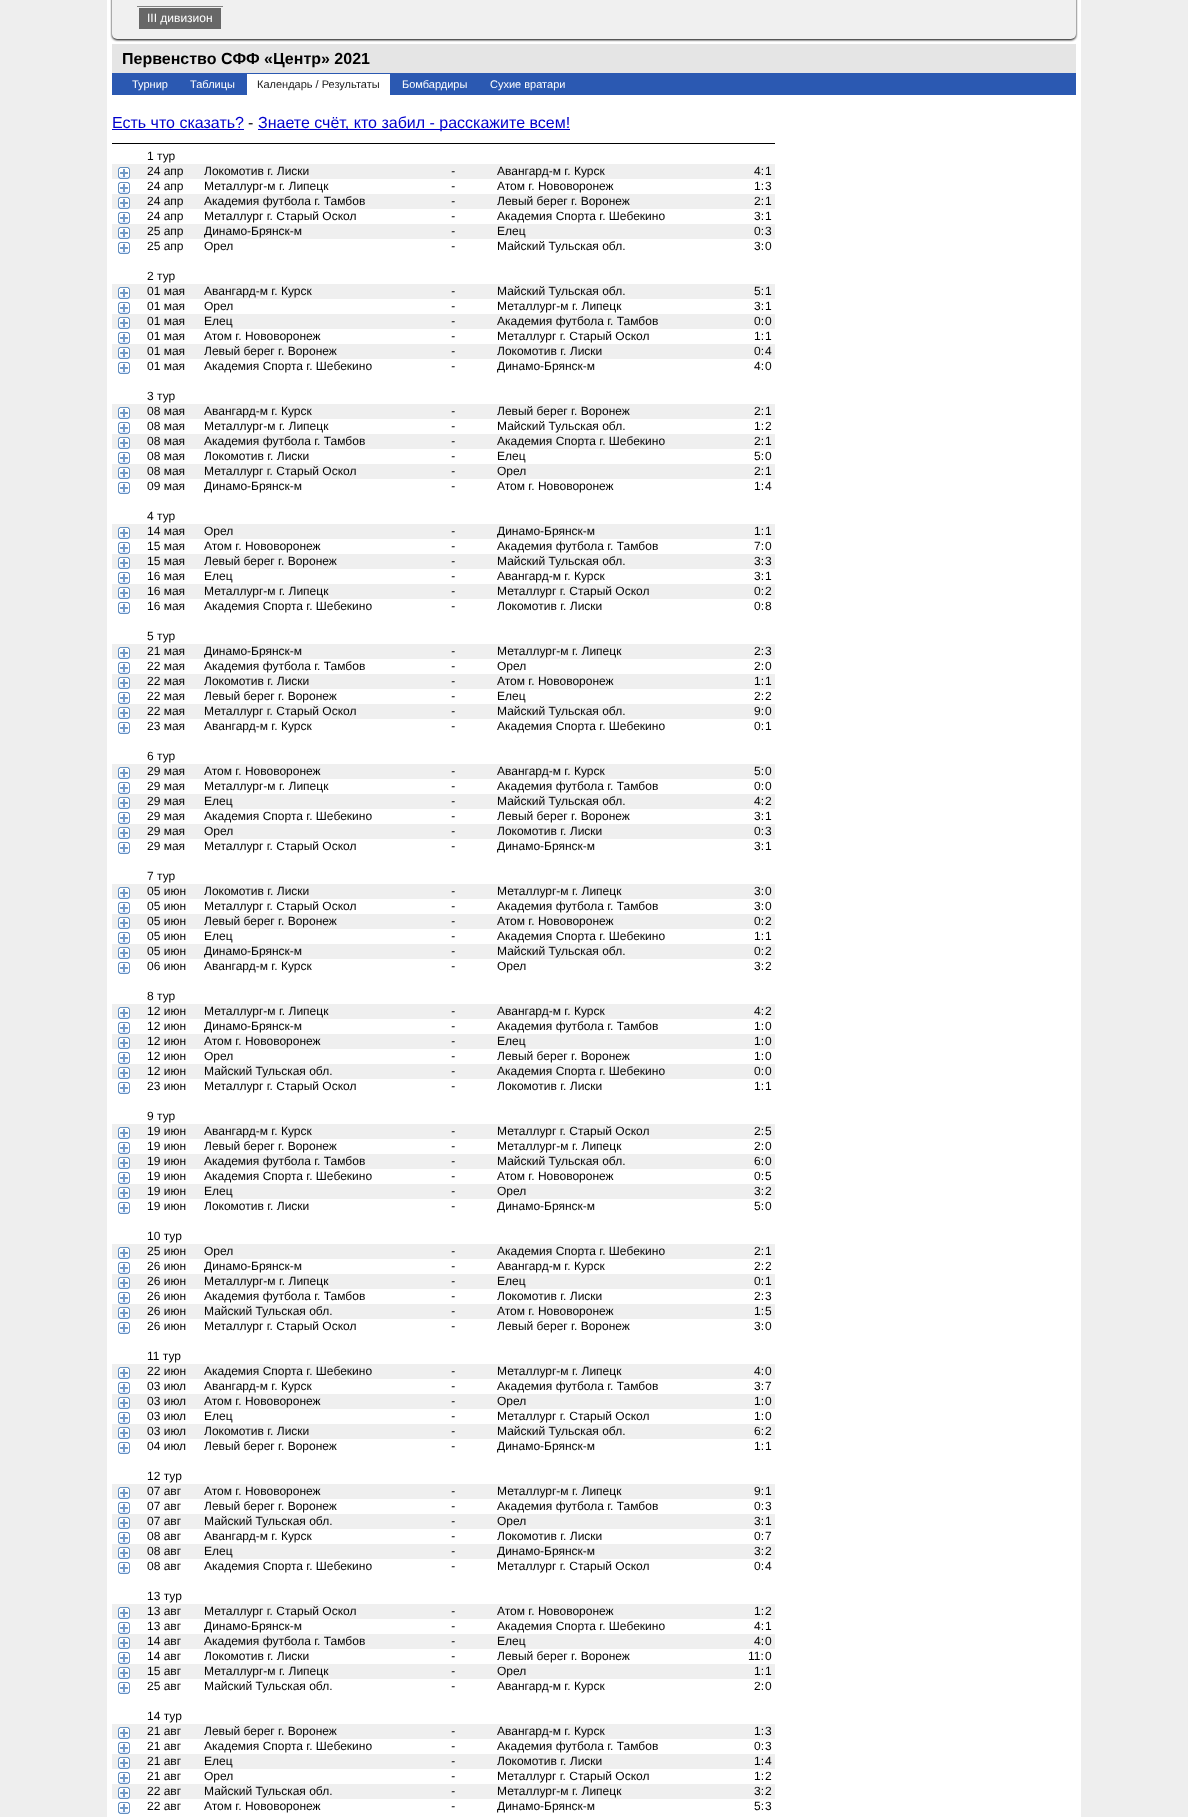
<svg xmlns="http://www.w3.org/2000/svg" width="1188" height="1817">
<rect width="100%" height="100%" fill="#eee"/>
<rect x="107" width="974" height="1817" fill="#fff"/>
<rect x="112" y="-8" width="964" height="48" rx="5" fill="#000" filter="blur(1px)"/>
<rect x="112" y="-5" width="964" height="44" rx="5" fill="#f0f0f0"/>
<rect x="137" y="6" width="86" height="1" fill="#838383"/>
<rect x="139" y="8" width="82" height="21" fill="#676767"/>
<text x="147" y="22" style="font-family:Liberation Sans;font-size:12px;fill:#fff">III дивизион</text>
<rect x="112" y="44" width="964" height="29" fill="#e5e5e5"/>
<text x="122" y="64" style="font-family:Liberation Sans;font-size:16px;font-weight:bold;fill:#000">Первенство СФФ «Центр» 2021</text>
<rect x="112" y="73" width="964" height="22" fill="#2b59b2"/>
<text x="132" y="88" style="font-family:Liberation Sans;font-size:11px;fill:#fff">Турнир</text>
<text x="190" y="88" style="font-family:Liberation Sans;font-size:11px;fill:#fff">Таблицы</text>
<rect x="247" y="74" width="143" height="21" fill="#fff"/>
<text x="257" y="88" style="font-family:Liberation Sans;font-size:11px;fill:#1a1a1a">Календарь / Результаты</text>
<text x="402" y="88" style="font-family:Liberation Sans;font-size:11px;fill:#fff">Бомбардиры</text>
<text x="490" y="88" style="font-family:Liberation Sans;font-size:11px;fill:#fff">Сухие вратари</text>
<text x="112" y="128" style="font-family:Liberation Sans;font-size:16px;fill:#00c">Есть что сказать?</text>
<rect x="112" y="129" width="132" height="1" fill="#00c"/>
<text x="248" y="128" style="font-family:Liberation Sans;font-size:16px;fill:#000">-</text>
<rect x="258" y="129" width="312" height="1" fill="#00c"/>
<text x="258" y="128" style="font-family:Liberation Sans;font-size:16px;fill:#00c">Знаете счёт, кто забил - расскажите всем!</text>
<rect x="112" y="143" width="663" height="1" fill="#000"/>
<text x="147" y="160" style="font-family:Liberation Sans;font-size:12px;fill:#000">1 тур</text>
<rect x="112" y="164" width="663" height="15" fill="#efefef"/>
<image x="118" y="167" width="12" height="12" href="media/1.png"/>
<text x="147" y="175" style="font-family:Liberation Sans;font-size:12px;fill:#000">24 апр</text>
<text x="204" y="175" style="font-family:Liberation Sans;font-size:12px;fill:#000">Локомотив г. Лиски</text>
<text x="451" y="175" style="font-family:Liberation Sans;font-size:12px;font-style:italic;fill:#000">-</text>
<text x="497" y="175" style="font-family:Liberation Sans;font-size:12px;fill:#000">Авангард-м г. Курск</text>
<text x="754" y="175" style="font-family:Liberation Sans;font-size:12px;fill:#000">4:</text>
<text x="765" y="175" style="font-family:Liberation Sans;font-size:12px;fill:#000">1</text>
<image x="118" y="182" width="12" height="12" href="media/2.png"/>
<text x="147" y="190" style="font-family:Liberation Sans;font-size:12px;fill:#000">24 апр</text>
<text x="204" y="190" style="font-family:Liberation Sans;font-size:12px;fill:#000">Металлург-м г. Липецк</text>
<text x="451" y="190" style="font-family:Liberation Sans;font-size:12px;font-style:italic;fill:#000">-</text>
<text x="497" y="190" style="font-family:Liberation Sans;font-size:12px;fill:#000">Атом г. Нововоронеж</text>
<text x="754" y="190" style="font-family:Liberation Sans;font-size:12px;fill:#000">1:</text>
<text x="765" y="190" style="font-family:Liberation Sans;font-size:12px;fill:#000">3</text>
<rect x="112" y="194" width="663" height="15" fill="#efefef"/>
<image x="118" y="197" width="12" height="12" href="media/1.png"/>
<text x="147" y="205" style="font-family:Liberation Sans;font-size:12px;fill:#000">24 апр</text>
<text x="204" y="205" style="font-family:Liberation Sans;font-size:12px;fill:#000">Академия футбола г. Тамбов</text>
<text x="451" y="205" style="font-family:Liberation Sans;font-size:12px;font-style:italic;fill:#000">-</text>
<text x="497" y="205" style="font-family:Liberation Sans;font-size:12px;fill:#000">Левый берег г. Воронеж</text>
<text x="754" y="205" style="font-family:Liberation Sans;font-size:12px;fill:#000">2:</text>
<text x="765" y="205" style="font-family:Liberation Sans;font-size:12px;fill:#000">1</text>
<image x="118" y="212" width="12" height="12" href="media/2.png"/>
<text x="147" y="220" style="font-family:Liberation Sans;font-size:12px;fill:#000">24 апр</text>
<text x="204" y="220" style="font-family:Liberation Sans;font-size:12px;fill:#000">Металлург г. Старый Оскол</text>
<text x="451" y="220" style="font-family:Liberation Sans;font-size:12px;font-style:italic;fill:#000">-</text>
<text x="497" y="220" style="font-family:Liberation Sans;font-size:12px;fill:#000">Академия Спорта г. Шебекино</text>
<text x="754" y="220" style="font-family:Liberation Sans;font-size:12px;fill:#000">3:</text>
<text x="765" y="220" style="font-family:Liberation Sans;font-size:12px;fill:#000">1</text>
<rect x="112" y="224" width="663" height="15" fill="#efefef"/>
<image x="118" y="227" width="12" height="12" href="media/1.png"/>
<text x="147" y="235" style="font-family:Liberation Sans;font-size:12px;fill:#000">25 апр</text>
<text x="204" y="235" style="font-family:Liberation Sans;font-size:12px;fill:#000">Динамо-Брянск-м</text>
<text x="451" y="235" style="font-family:Liberation Sans;font-size:12px;font-style:italic;fill:#000">-</text>
<text x="497" y="235" style="font-family:Liberation Sans;font-size:12px;fill:#000">Елец</text>
<text x="754" y="235" style="font-family:Liberation Sans;font-size:12px;fill:#000">0:</text>
<text x="765" y="235" style="font-family:Liberation Sans;font-size:12px;fill:#000">3</text>
<image x="118" y="242" width="12" height="12" href="media/2.png"/>
<text x="147" y="250" style="font-family:Liberation Sans;font-size:12px;fill:#000">25 апр</text>
<text x="204" y="250" style="font-family:Liberation Sans;font-size:12px;fill:#000">Орел</text>
<text x="451" y="250" style="font-family:Liberation Sans;font-size:12px;font-style:italic;fill:#000">-</text>
<text x="497" y="250" style="font-family:Liberation Sans;font-size:12px;fill:#000">Майский Тульская обл.</text>
<text x="754" y="250" style="font-family:Liberation Sans;font-size:12px;fill:#000">3:</text>
<text x="765" y="250" style="font-family:Liberation Sans;font-size:12px;fill:#000">0</text>
<text x="147" y="280" style="font-family:Liberation Sans;font-size:12px;fill:#000">2 тур</text>
<rect x="112" y="284" width="663" height="15" fill="#efefef"/>
<image x="118" y="287" width="12" height="12" href="media/1.png"/>
<text x="147" y="295" style="font-family:Liberation Sans;font-size:12px;fill:#000">01 мая</text>
<text x="204" y="295" style="font-family:Liberation Sans;font-size:12px;fill:#000">Авангард-м г. Курск</text>
<text x="451" y="295" style="font-family:Liberation Sans;font-size:12px;font-style:italic;fill:#000">-</text>
<text x="497" y="295" style="font-family:Liberation Sans;font-size:12px;fill:#000">Майский Тульская обл.</text>
<text x="754" y="295" style="font-family:Liberation Sans;font-size:12px;fill:#000">5:</text>
<text x="765" y="295" style="font-family:Liberation Sans;font-size:12px;fill:#000">1</text>
<image x="118" y="302" width="12" height="12" href="media/2.png"/>
<text x="147" y="310" style="font-family:Liberation Sans;font-size:12px;fill:#000">01 мая</text>
<text x="204" y="310" style="font-family:Liberation Sans;font-size:12px;fill:#000">Орел</text>
<text x="451" y="310" style="font-family:Liberation Sans;font-size:12px;font-style:italic;fill:#000">-</text>
<text x="497" y="310" style="font-family:Liberation Sans;font-size:12px;fill:#000">Металлург-м г. Липецк</text>
<text x="754" y="310" style="font-family:Liberation Sans;font-size:12px;fill:#000">3:</text>
<text x="765" y="310" style="font-family:Liberation Sans;font-size:12px;fill:#000">1</text>
<rect x="112" y="314" width="663" height="15" fill="#efefef"/>
<image x="118" y="317" width="12" height="12" href="media/1.png"/>
<text x="147" y="325" style="font-family:Liberation Sans;font-size:12px;fill:#000">01 мая</text>
<text x="204" y="325" style="font-family:Liberation Sans;font-size:12px;fill:#000">Елец</text>
<text x="451" y="325" style="font-family:Liberation Sans;font-size:12px;font-style:italic;fill:#000">-</text>
<text x="497" y="325" style="font-family:Liberation Sans;font-size:12px;fill:#000">Академия футбола г. Тамбов</text>
<text x="754" y="325" style="font-family:Liberation Sans;font-size:12px;fill:#000">0:</text>
<text x="765" y="325" style="font-family:Liberation Sans;font-size:12px;fill:#000">0</text>
<image x="118" y="332" width="12" height="12" href="media/2.png"/>
<text x="147" y="340" style="font-family:Liberation Sans;font-size:12px;fill:#000">01 мая</text>
<text x="204" y="340" style="font-family:Liberation Sans;font-size:12px;fill:#000">Атом г. Нововоронеж</text>
<text x="451" y="340" style="font-family:Liberation Sans;font-size:12px;font-style:italic;fill:#000">-</text>
<text x="497" y="340" style="font-family:Liberation Sans;font-size:12px;fill:#000">Металлург г. Старый Оскол</text>
<text x="754" y="340" style="font-family:Liberation Sans;font-size:12px;fill:#000">1:</text>
<text x="765" y="340" style="font-family:Liberation Sans;font-size:12px;fill:#000">1</text>
<rect x="112" y="344" width="663" height="15" fill="#efefef"/>
<image x="118" y="347" width="12" height="12" href="media/1.png"/>
<text x="147" y="355" style="font-family:Liberation Sans;font-size:12px;fill:#000">01 мая</text>
<text x="204" y="355" style="font-family:Liberation Sans;font-size:12px;fill:#000">Левый берег г. Воронеж</text>
<text x="451" y="355" style="font-family:Liberation Sans;font-size:12px;font-style:italic;fill:#000">-</text>
<text x="497" y="355" style="font-family:Liberation Sans;font-size:12px;fill:#000">Локомотив г. Лиски</text>
<text x="754" y="355" style="font-family:Liberation Sans;font-size:12px;fill:#000">0:</text>
<text x="765" y="355" style="font-family:Liberation Sans;font-size:12px;fill:#000">4</text>
<image x="118" y="362" width="12" height="12" href="media/2.png"/>
<text x="147" y="370" style="font-family:Liberation Sans;font-size:12px;fill:#000">01 мая</text>
<text x="204" y="370" style="font-family:Liberation Sans;font-size:12px;fill:#000">Академия Спорта г. Шебекино</text>
<text x="451" y="370" style="font-family:Liberation Sans;font-size:12px;font-style:italic;fill:#000">-</text>
<text x="497" y="370" style="font-family:Liberation Sans;font-size:12px;fill:#000">Динамо-Брянск-м</text>
<text x="754" y="370" style="font-family:Liberation Sans;font-size:12px;fill:#000">4:</text>
<text x="765" y="370" style="font-family:Liberation Sans;font-size:12px;fill:#000">0</text>
<text x="147" y="400" style="font-family:Liberation Sans;font-size:12px;fill:#000">3 тур</text>
<rect x="112" y="404" width="663" height="15" fill="#efefef"/>
<image x="118" y="407" width="12" height="12" href="media/1.png"/>
<text x="147" y="415" style="font-family:Liberation Sans;font-size:12px;fill:#000">08 мая</text>
<text x="204" y="415" style="font-family:Liberation Sans;font-size:12px;fill:#000">Авангард-м г. Курск</text>
<text x="451" y="415" style="font-family:Liberation Sans;font-size:12px;font-style:italic;fill:#000">-</text>
<text x="497" y="415" style="font-family:Liberation Sans;font-size:12px;fill:#000">Левый берег г. Воронеж</text>
<text x="754" y="415" style="font-family:Liberation Sans;font-size:12px;fill:#000">2:</text>
<text x="765" y="415" style="font-family:Liberation Sans;font-size:12px;fill:#000">1</text>
<image x="118" y="422" width="12" height="12" href="media/2.png"/>
<text x="147" y="430" style="font-family:Liberation Sans;font-size:12px;fill:#000">08 мая</text>
<text x="204" y="430" style="font-family:Liberation Sans;font-size:12px;fill:#000">Металлург-м г. Липецк</text>
<text x="451" y="430" style="font-family:Liberation Sans;font-size:12px;font-style:italic;fill:#000">-</text>
<text x="497" y="430" style="font-family:Liberation Sans;font-size:12px;fill:#000">Майский Тульская обл.</text>
<text x="754" y="430" style="font-family:Liberation Sans;font-size:12px;fill:#000">1:</text>
<text x="765" y="430" style="font-family:Liberation Sans;font-size:12px;fill:#000">2</text>
<rect x="112" y="434" width="663" height="15" fill="#efefef"/>
<image x="118" y="437" width="12" height="12" href="media/1.png"/>
<text x="147" y="445" style="font-family:Liberation Sans;font-size:12px;fill:#000">08 мая</text>
<text x="204" y="445" style="font-family:Liberation Sans;font-size:12px;fill:#000">Академия футбола г. Тамбов</text>
<text x="451" y="445" style="font-family:Liberation Sans;font-size:12px;font-style:italic;fill:#000">-</text>
<text x="497" y="445" style="font-family:Liberation Sans;font-size:12px;fill:#000">Академия Спорта г. Шебекино</text>
<text x="754" y="445" style="font-family:Liberation Sans;font-size:12px;fill:#000">2:</text>
<text x="765" y="445" style="font-family:Liberation Sans;font-size:12px;fill:#000">1</text>
<image x="118" y="452" width="12" height="12" href="media/2.png"/>
<text x="147" y="460" style="font-family:Liberation Sans;font-size:12px;fill:#000">08 мая</text>
<text x="204" y="460" style="font-family:Liberation Sans;font-size:12px;fill:#000">Локомотив г. Лиски</text>
<text x="451" y="460" style="font-family:Liberation Sans;font-size:12px;font-style:italic;fill:#000">-</text>
<text x="497" y="460" style="font-family:Liberation Sans;font-size:12px;fill:#000">Елец</text>
<text x="754" y="460" style="font-family:Liberation Sans;font-size:12px;fill:#000">5:</text>
<text x="765" y="460" style="font-family:Liberation Sans;font-size:12px;fill:#000">0</text>
<rect x="112" y="464" width="663" height="15" fill="#efefef"/>
<image x="118" y="467" width="12" height="12" href="media/1.png"/>
<text x="147" y="475" style="font-family:Liberation Sans;font-size:12px;fill:#000">08 мая</text>
<text x="204" y="475" style="font-family:Liberation Sans;font-size:12px;fill:#000">Металлург г. Старый Оскол</text>
<text x="451" y="475" style="font-family:Liberation Sans;font-size:12px;font-style:italic;fill:#000">-</text>
<text x="497" y="475" style="font-family:Liberation Sans;font-size:12px;fill:#000">Орел</text>
<text x="754" y="475" style="font-family:Liberation Sans;font-size:12px;fill:#000">2:</text>
<text x="765" y="475" style="font-family:Liberation Sans;font-size:12px;fill:#000">1</text>
<image x="118" y="482" width="12" height="12" href="media/2.png"/>
<text x="147" y="490" style="font-family:Liberation Sans;font-size:12px;fill:#000">09 мая</text>
<text x="204" y="490" style="font-family:Liberation Sans;font-size:12px;fill:#000">Динамо-Брянск-м</text>
<text x="451" y="490" style="font-family:Liberation Sans;font-size:12px;font-style:italic;fill:#000">-</text>
<text x="497" y="490" style="font-family:Liberation Sans;font-size:12px;fill:#000">Атом г. Нововоронеж</text>
<text x="754" y="490" style="font-family:Liberation Sans;font-size:12px;fill:#000">1:</text>
<text x="765" y="490" style="font-family:Liberation Sans;font-size:12px;fill:#000">4</text>
<text x="147" y="520" style="font-family:Liberation Sans;font-size:12px;fill:#000">4 тур</text>
<rect x="112" y="524" width="663" height="15" fill="#efefef"/>
<image x="118" y="527" width="12" height="12" href="media/1.png"/>
<text x="147" y="535" style="font-family:Liberation Sans;font-size:12px;fill:#000">14 мая</text>
<text x="204" y="535" style="font-family:Liberation Sans;font-size:12px;fill:#000">Орел</text>
<text x="451" y="535" style="font-family:Liberation Sans;font-size:12px;font-style:italic;fill:#000">-</text>
<text x="497" y="535" style="font-family:Liberation Sans;font-size:12px;fill:#000">Динамо-Брянск-м</text>
<text x="754" y="535" style="font-family:Liberation Sans;font-size:12px;fill:#000">1:</text>
<text x="765" y="535" style="font-family:Liberation Sans;font-size:12px;fill:#000">1</text>
<image x="118" y="542" width="12" height="12" href="media/2.png"/>
<text x="147" y="550" style="font-family:Liberation Sans;font-size:12px;fill:#000">15 мая</text>
<text x="204" y="550" style="font-family:Liberation Sans;font-size:12px;fill:#000">Атом г. Нововоронеж</text>
<text x="451" y="550" style="font-family:Liberation Sans;font-size:12px;font-style:italic;fill:#000">-</text>
<text x="497" y="550" style="font-family:Liberation Sans;font-size:12px;fill:#000">Академия футбола г. Тамбов</text>
<text x="754" y="550" style="font-family:Liberation Sans;font-size:12px;fill:#000">7:</text>
<text x="765" y="550" style="font-family:Liberation Sans;font-size:12px;fill:#000">0</text>
<rect x="112" y="554" width="663" height="15" fill="#efefef"/>
<image x="118" y="557" width="12" height="12" href="media/1.png"/>
<text x="147" y="565" style="font-family:Liberation Sans;font-size:12px;fill:#000">15 мая</text>
<text x="204" y="565" style="font-family:Liberation Sans;font-size:12px;fill:#000">Левый берег г. Воронеж</text>
<text x="451" y="565" style="font-family:Liberation Sans;font-size:12px;font-style:italic;fill:#000">-</text>
<text x="497" y="565" style="font-family:Liberation Sans;font-size:12px;fill:#000">Майский Тульская обл.</text>
<text x="754" y="565" style="font-family:Liberation Sans;font-size:12px;fill:#000">3:</text>
<text x="765" y="565" style="font-family:Liberation Sans;font-size:12px;fill:#000">3</text>
<image x="118" y="572" width="12" height="12" href="media/2.png"/>
<text x="147" y="580" style="font-family:Liberation Sans;font-size:12px;fill:#000">16 мая</text>
<text x="204" y="580" style="font-family:Liberation Sans;font-size:12px;fill:#000">Елец</text>
<text x="451" y="580" style="font-family:Liberation Sans;font-size:12px;font-style:italic;fill:#000">-</text>
<text x="497" y="580" style="font-family:Liberation Sans;font-size:12px;fill:#000">Авангард-м г. Курск</text>
<text x="754" y="580" style="font-family:Liberation Sans;font-size:12px;fill:#000">3:</text>
<text x="765" y="580" style="font-family:Liberation Sans;font-size:12px;fill:#000">1</text>
<rect x="112" y="584" width="663" height="15" fill="#efefef"/>
<image x="118" y="587" width="12" height="12" href="media/1.png"/>
<text x="147" y="595" style="font-family:Liberation Sans;font-size:12px;fill:#000">16 мая</text>
<text x="204" y="595" style="font-family:Liberation Sans;font-size:12px;fill:#000">Металлург-м г. Липецк</text>
<text x="451" y="595" style="font-family:Liberation Sans;font-size:12px;font-style:italic;fill:#000">-</text>
<text x="497" y="595" style="font-family:Liberation Sans;font-size:12px;fill:#000">Металлург г. Старый Оскол</text>
<text x="754" y="595" style="font-family:Liberation Sans;font-size:12px;fill:#000">0:</text>
<text x="765" y="595" style="font-family:Liberation Sans;font-size:12px;fill:#000">2</text>
<image x="118" y="602" width="12" height="12" href="media/2.png"/>
<text x="147" y="610" style="font-family:Liberation Sans;font-size:12px;fill:#000">16 мая</text>
<text x="204" y="610" style="font-family:Liberation Sans;font-size:12px;fill:#000">Академия Спорта г. Шебекино</text>
<text x="451" y="610" style="font-family:Liberation Sans;font-size:12px;font-style:italic;fill:#000">-</text>
<text x="497" y="610" style="font-family:Liberation Sans;font-size:12px;fill:#000">Локомотив г. Лиски</text>
<text x="754" y="610" style="font-family:Liberation Sans;font-size:12px;fill:#000">0:</text>
<text x="765" y="610" style="font-family:Liberation Sans;font-size:12px;fill:#000">8</text>
<text x="147" y="640" style="font-family:Liberation Sans;font-size:12px;fill:#000">5 тур</text>
<rect x="112" y="644" width="663" height="15" fill="#efefef"/>
<image x="118" y="647" width="12" height="12" href="media/1.png"/>
<text x="147" y="655" style="font-family:Liberation Sans;font-size:12px;fill:#000">21 мая</text>
<text x="204" y="655" style="font-family:Liberation Sans;font-size:12px;fill:#000">Динамо-Брянск-м</text>
<text x="451" y="655" style="font-family:Liberation Sans;font-size:12px;font-style:italic;fill:#000">-</text>
<text x="497" y="655" style="font-family:Liberation Sans;font-size:12px;fill:#000">Металлург-м г. Липецк</text>
<text x="754" y="655" style="font-family:Liberation Sans;font-size:12px;fill:#000">2:</text>
<text x="765" y="655" style="font-family:Liberation Sans;font-size:12px;fill:#000">3</text>
<image x="118" y="662" width="12" height="12" href="media/2.png"/>
<text x="147" y="670" style="font-family:Liberation Sans;font-size:12px;fill:#000">22 мая</text>
<text x="204" y="670" style="font-family:Liberation Sans;font-size:12px;fill:#000">Академия футбола г. Тамбов</text>
<text x="451" y="670" style="font-family:Liberation Sans;font-size:12px;font-style:italic;fill:#000">-</text>
<text x="497" y="670" style="font-family:Liberation Sans;font-size:12px;fill:#000">Орел</text>
<text x="754" y="670" style="font-family:Liberation Sans;font-size:12px;fill:#000">2:</text>
<text x="765" y="670" style="font-family:Liberation Sans;font-size:12px;fill:#000">0</text>
<rect x="112" y="674" width="663" height="15" fill="#efefef"/>
<image x="118" y="677" width="12" height="12" href="media/1.png"/>
<text x="147" y="685" style="font-family:Liberation Sans;font-size:12px;fill:#000">22 мая</text>
<text x="204" y="685" style="font-family:Liberation Sans;font-size:12px;fill:#000">Локомотив г. Лиски</text>
<text x="451" y="685" style="font-family:Liberation Sans;font-size:12px;font-style:italic;fill:#000">-</text>
<text x="497" y="685" style="font-family:Liberation Sans;font-size:12px;fill:#000">Атом г. Нововоронеж</text>
<text x="754" y="685" style="font-family:Liberation Sans;font-size:12px;fill:#000">1:</text>
<text x="765" y="685" style="font-family:Liberation Sans;font-size:12px;fill:#000">1</text>
<image x="118" y="692" width="12" height="12" href="media/2.png"/>
<text x="147" y="700" style="font-family:Liberation Sans;font-size:12px;fill:#000">22 мая</text>
<text x="204" y="700" style="font-family:Liberation Sans;font-size:12px;fill:#000">Левый берег г. Воронеж</text>
<text x="451" y="700" style="font-family:Liberation Sans;font-size:12px;font-style:italic;fill:#000">-</text>
<text x="497" y="700" style="font-family:Liberation Sans;font-size:12px;fill:#000">Елец</text>
<text x="754" y="700" style="font-family:Liberation Sans;font-size:12px;fill:#000">2:</text>
<text x="765" y="700" style="font-family:Liberation Sans;font-size:12px;fill:#000">2</text>
<rect x="112" y="704" width="663" height="15" fill="#efefef"/>
<image x="118" y="707" width="12" height="12" href="media/1.png"/>
<text x="147" y="715" style="font-family:Liberation Sans;font-size:12px;fill:#000">22 мая</text>
<text x="204" y="715" style="font-family:Liberation Sans;font-size:12px;fill:#000">Металлург г. Старый Оскол</text>
<text x="451" y="715" style="font-family:Liberation Sans;font-size:12px;font-style:italic;fill:#000">-</text>
<text x="497" y="715" style="font-family:Liberation Sans;font-size:12px;fill:#000">Майский Тульская обл.</text>
<text x="754" y="715" style="font-family:Liberation Sans;font-size:12px;fill:#000">9:</text>
<text x="765" y="715" style="font-family:Liberation Sans;font-size:12px;fill:#000">0</text>
<image x="118" y="722" width="12" height="12" href="media/2.png"/>
<text x="147" y="730" style="font-family:Liberation Sans;font-size:12px;fill:#000">23 мая</text>
<text x="204" y="730" style="font-family:Liberation Sans;font-size:12px;fill:#000">Авангард-м г. Курск</text>
<text x="451" y="730" style="font-family:Liberation Sans;font-size:12px;font-style:italic;fill:#000">-</text>
<text x="497" y="730" style="font-family:Liberation Sans;font-size:12px;fill:#000">Академия Спорта г. Шебекино</text>
<text x="754" y="730" style="font-family:Liberation Sans;font-size:12px;fill:#000">0:</text>
<text x="765" y="730" style="font-family:Liberation Sans;font-size:12px;fill:#000">1</text>
<text x="147" y="760" style="font-family:Liberation Sans;font-size:12px;fill:#000">6 тур</text>
<rect x="112" y="764" width="663" height="15" fill="#efefef"/>
<image x="118" y="767" width="12" height="12" href="media/1.png"/>
<text x="147" y="775" style="font-family:Liberation Sans;font-size:12px;fill:#000">29 мая</text>
<text x="204" y="775" style="font-family:Liberation Sans;font-size:12px;fill:#000">Атом г. Нововоронеж</text>
<text x="451" y="775" style="font-family:Liberation Sans;font-size:12px;font-style:italic;fill:#000">-</text>
<text x="497" y="775" style="font-family:Liberation Sans;font-size:12px;fill:#000">Авангард-м г. Курск</text>
<text x="754" y="775" style="font-family:Liberation Sans;font-size:12px;fill:#000">5:</text>
<text x="765" y="775" style="font-family:Liberation Sans;font-size:12px;fill:#000">0</text>
<image x="118" y="782" width="12" height="12" href="media/2.png"/>
<text x="147" y="790" style="font-family:Liberation Sans;font-size:12px;fill:#000">29 мая</text>
<text x="204" y="790" style="font-family:Liberation Sans;font-size:12px;fill:#000">Металлург-м г. Липецк</text>
<text x="451" y="790" style="font-family:Liberation Sans;font-size:12px;font-style:italic;fill:#000">-</text>
<text x="497" y="790" style="font-family:Liberation Sans;font-size:12px;fill:#000">Академия футбола г. Тамбов</text>
<text x="754" y="790" style="font-family:Liberation Sans;font-size:12px;fill:#000">0:</text>
<text x="765" y="790" style="font-family:Liberation Sans;font-size:12px;fill:#000">0</text>
<rect x="112" y="794" width="663" height="15" fill="#efefef"/>
<image x="118" y="797" width="12" height="12" href="media/1.png"/>
<text x="147" y="805" style="font-family:Liberation Sans;font-size:12px;fill:#000">29 мая</text>
<text x="204" y="805" style="font-family:Liberation Sans;font-size:12px;fill:#000">Елец</text>
<text x="451" y="805" style="font-family:Liberation Sans;font-size:12px;font-style:italic;fill:#000">-</text>
<text x="497" y="805" style="font-family:Liberation Sans;font-size:12px;fill:#000">Майский Тульская обл.</text>
<text x="754" y="805" style="font-family:Liberation Sans;font-size:12px;fill:#000">4:</text>
<text x="765" y="805" style="font-family:Liberation Sans;font-size:12px;fill:#000">2</text>
<image x="118" y="812" width="12" height="12" href="media/2.png"/>
<text x="147" y="820" style="font-family:Liberation Sans;font-size:12px;fill:#000">29 мая</text>
<text x="204" y="820" style="font-family:Liberation Sans;font-size:12px;fill:#000">Академия Спорта г. Шебекино</text>
<text x="451" y="820" style="font-family:Liberation Sans;font-size:12px;font-style:italic;fill:#000">-</text>
<text x="497" y="820" style="font-family:Liberation Sans;font-size:12px;fill:#000">Левый берег г. Воронеж</text>
<text x="754" y="820" style="font-family:Liberation Sans;font-size:12px;fill:#000">3:</text>
<text x="765" y="820" style="font-family:Liberation Sans;font-size:12px;fill:#000">1</text>
<rect x="112" y="824" width="663" height="15" fill="#efefef"/>
<image x="118" y="827" width="12" height="12" href="media/1.png"/>
<text x="147" y="835" style="font-family:Liberation Sans;font-size:12px;fill:#000">29 мая</text>
<text x="204" y="835" style="font-family:Liberation Sans;font-size:12px;fill:#000">Орел</text>
<text x="451" y="835" style="font-family:Liberation Sans;font-size:12px;font-style:italic;fill:#000">-</text>
<text x="497" y="835" style="font-family:Liberation Sans;font-size:12px;fill:#000">Локомотив г. Лиски</text>
<text x="754" y="835" style="font-family:Liberation Sans;font-size:12px;fill:#000">0:</text>
<text x="765" y="835" style="font-family:Liberation Sans;font-size:12px;fill:#000">3</text>
<image x="118" y="842" width="12" height="12" href="media/2.png"/>
<text x="147" y="850" style="font-family:Liberation Sans;font-size:12px;fill:#000">29 мая</text>
<text x="204" y="850" style="font-family:Liberation Sans;font-size:12px;fill:#000">Металлург г. Старый Оскол</text>
<text x="451" y="850" style="font-family:Liberation Sans;font-size:12px;font-style:italic;fill:#000">-</text>
<text x="497" y="850" style="font-family:Liberation Sans;font-size:12px;fill:#000">Динамо-Брянск-м</text>
<text x="754" y="850" style="font-family:Liberation Sans;font-size:12px;fill:#000">3:</text>
<text x="765" y="850" style="font-family:Liberation Sans;font-size:12px;fill:#000">1</text>
<text x="147" y="880" style="font-family:Liberation Sans;font-size:12px;fill:#000">7 тур</text>
<rect x="112" y="884" width="663" height="15" fill="#efefef"/>
<image x="118" y="887" width="12" height="12" href="media/1.png"/>
<text x="147" y="895" style="font-family:Liberation Sans;font-size:12px;fill:#000">05 июн</text>
<text x="204" y="895" style="font-family:Liberation Sans;font-size:12px;fill:#000">Локомотив г. Лиски</text>
<text x="451" y="895" style="font-family:Liberation Sans;font-size:12px;font-style:italic;fill:#000">-</text>
<text x="497" y="895" style="font-family:Liberation Sans;font-size:12px;fill:#000">Металлург-м г. Липецк</text>
<text x="754" y="895" style="font-family:Liberation Sans;font-size:12px;fill:#000">3:</text>
<text x="765" y="895" style="font-family:Liberation Sans;font-size:12px;fill:#000">0</text>
<image x="118" y="902" width="12" height="12" href="media/2.png"/>
<text x="147" y="910" style="font-family:Liberation Sans;font-size:12px;fill:#000">05 июн</text>
<text x="204" y="910" style="font-family:Liberation Sans;font-size:12px;fill:#000">Металлург г. Старый Оскол</text>
<text x="451" y="910" style="font-family:Liberation Sans;font-size:12px;font-style:italic;fill:#000">-</text>
<text x="497" y="910" style="font-family:Liberation Sans;font-size:12px;fill:#000">Академия футбола г. Тамбов</text>
<text x="754" y="910" style="font-family:Liberation Sans;font-size:12px;fill:#000">3:</text>
<text x="765" y="910" style="font-family:Liberation Sans;font-size:12px;fill:#000">0</text>
<rect x="112" y="914" width="663" height="15" fill="#efefef"/>
<image x="118" y="917" width="12" height="12" href="media/1.png"/>
<text x="147" y="925" style="font-family:Liberation Sans;font-size:12px;fill:#000">05 июн</text>
<text x="204" y="925" style="font-family:Liberation Sans;font-size:12px;fill:#000">Левый берег г. Воронеж</text>
<text x="451" y="925" style="font-family:Liberation Sans;font-size:12px;font-style:italic;fill:#000">-</text>
<text x="497" y="925" style="font-family:Liberation Sans;font-size:12px;fill:#000">Атом г. Нововоронеж</text>
<text x="754" y="925" style="font-family:Liberation Sans;font-size:12px;fill:#000">0:</text>
<text x="765" y="925" style="font-family:Liberation Sans;font-size:12px;fill:#000">2</text>
<image x="118" y="932" width="12" height="12" href="media/2.png"/>
<text x="147" y="940" style="font-family:Liberation Sans;font-size:12px;fill:#000">05 июн</text>
<text x="204" y="940" style="font-family:Liberation Sans;font-size:12px;fill:#000">Елец</text>
<text x="451" y="940" style="font-family:Liberation Sans;font-size:12px;font-style:italic;fill:#000">-</text>
<text x="497" y="940" style="font-family:Liberation Sans;font-size:12px;fill:#000">Академия Спорта г. Шебекино</text>
<text x="754" y="940" style="font-family:Liberation Sans;font-size:12px;fill:#000">1:</text>
<text x="765" y="940" style="font-family:Liberation Sans;font-size:12px;fill:#000">1</text>
<rect x="112" y="944" width="663" height="15" fill="#efefef"/>
<image x="118" y="947" width="12" height="12" href="media/1.png"/>
<text x="147" y="955" style="font-family:Liberation Sans;font-size:12px;fill:#000">05 июн</text>
<text x="204" y="955" style="font-family:Liberation Sans;font-size:12px;fill:#000">Динамо-Брянск-м</text>
<text x="451" y="955" style="font-family:Liberation Sans;font-size:12px;font-style:italic;fill:#000">-</text>
<text x="497" y="955" style="font-family:Liberation Sans;font-size:12px;fill:#000">Майский Тульская обл.</text>
<text x="754" y="955" style="font-family:Liberation Sans;font-size:12px;fill:#000">0:</text>
<text x="765" y="955" style="font-family:Liberation Sans;font-size:12px;fill:#000">2</text>
<image x="118" y="962" width="12" height="12" href="media/2.png"/>
<text x="147" y="970" style="font-family:Liberation Sans;font-size:12px;fill:#000">06 июн</text>
<text x="204" y="970" style="font-family:Liberation Sans;font-size:12px;fill:#000">Авангард-м г. Курск</text>
<text x="451" y="970" style="font-family:Liberation Sans;font-size:12px;font-style:italic;fill:#000">-</text>
<text x="497" y="970" style="font-family:Liberation Sans;font-size:12px;fill:#000">Орел</text>
<text x="754" y="970" style="font-family:Liberation Sans;font-size:12px;fill:#000">3:</text>
<text x="765" y="970" style="font-family:Liberation Sans;font-size:12px;fill:#000">2</text>
<text x="147" y="1000" style="font-family:Liberation Sans;font-size:12px;fill:#000">8 тур</text>
<rect x="112" y="1004" width="663" height="15" fill="#efefef"/>
<image x="118" y="1007" width="12" height="12" href="media/1.png"/>
<text x="147" y="1015" style="font-family:Liberation Sans;font-size:12px;fill:#000">12 июн</text>
<text x="204" y="1015" style="font-family:Liberation Sans;font-size:12px;fill:#000">Металлург-м г. Липецк</text>
<text x="451" y="1015" style="font-family:Liberation Sans;font-size:12px;font-style:italic;fill:#000">-</text>
<text x="497" y="1015" style="font-family:Liberation Sans;font-size:12px;fill:#000">Авангард-м г. Курск</text>
<text x="754" y="1015" style="font-family:Liberation Sans;font-size:12px;fill:#000">4:</text>
<text x="765" y="1015" style="font-family:Liberation Sans;font-size:12px;fill:#000">2</text>
<image x="118" y="1022" width="12" height="12" href="media/2.png"/>
<text x="147" y="1030" style="font-family:Liberation Sans;font-size:12px;fill:#000">12 июн</text>
<text x="204" y="1030" style="font-family:Liberation Sans;font-size:12px;fill:#000">Динамо-Брянск-м</text>
<text x="451" y="1030" style="font-family:Liberation Sans;font-size:12px;font-style:italic;fill:#000">-</text>
<text x="497" y="1030" style="font-family:Liberation Sans;font-size:12px;fill:#000">Академия футбола г. Тамбов</text>
<text x="754" y="1030" style="font-family:Liberation Sans;font-size:12px;fill:#000">1:</text>
<text x="765" y="1030" style="font-family:Liberation Sans;font-size:12px;fill:#000">0</text>
<rect x="112" y="1034" width="663" height="15" fill="#efefef"/>
<image x="118" y="1037" width="12" height="12" href="media/1.png"/>
<text x="147" y="1045" style="font-family:Liberation Sans;font-size:12px;fill:#000">12 июн</text>
<text x="204" y="1045" style="font-family:Liberation Sans;font-size:12px;fill:#000">Атом г. Нововоронеж</text>
<text x="451" y="1045" style="font-family:Liberation Sans;font-size:12px;font-style:italic;fill:#000">-</text>
<text x="497" y="1045" style="font-family:Liberation Sans;font-size:12px;fill:#000">Елец</text>
<text x="754" y="1045" style="font-family:Liberation Sans;font-size:12px;fill:#000">1:</text>
<text x="765" y="1045" style="font-family:Liberation Sans;font-size:12px;fill:#000">0</text>
<image x="118" y="1052" width="12" height="12" href="media/2.png"/>
<text x="147" y="1060" style="font-family:Liberation Sans;font-size:12px;fill:#000">12 июн</text>
<text x="204" y="1060" style="font-family:Liberation Sans;font-size:12px;fill:#000">Орел</text>
<text x="451" y="1060" style="font-family:Liberation Sans;font-size:12px;font-style:italic;fill:#000">-</text>
<text x="497" y="1060" style="font-family:Liberation Sans;font-size:12px;fill:#000">Левый берег г. Воронеж</text>
<text x="754" y="1060" style="font-family:Liberation Sans;font-size:12px;fill:#000">1:</text>
<text x="765" y="1060" style="font-family:Liberation Sans;font-size:12px;fill:#000">0</text>
<rect x="112" y="1064" width="663" height="15" fill="#efefef"/>
<image x="118" y="1067" width="12" height="12" href="media/1.png"/>
<text x="147" y="1075" style="font-family:Liberation Sans;font-size:12px;fill:#000">12 июн</text>
<text x="204" y="1075" style="font-family:Liberation Sans;font-size:12px;fill:#000">Майский Тульская обл.</text>
<text x="451" y="1075" style="font-family:Liberation Sans;font-size:12px;font-style:italic;fill:#000">-</text>
<text x="497" y="1075" style="font-family:Liberation Sans;font-size:12px;fill:#000">Академия Спорта г. Шебекино</text>
<text x="754" y="1075" style="font-family:Liberation Sans;font-size:12px;fill:#000">0:</text>
<text x="765" y="1075" style="font-family:Liberation Sans;font-size:12px;fill:#000">0</text>
<image x="118" y="1082" width="12" height="12" href="media/2.png"/>
<text x="147" y="1090" style="font-family:Liberation Sans;font-size:12px;fill:#000">23 июн</text>
<text x="204" y="1090" style="font-family:Liberation Sans;font-size:12px;fill:#000">Металлург г. Старый Оскол</text>
<text x="451" y="1090" style="font-family:Liberation Sans;font-size:12px;font-style:italic;fill:#000">-</text>
<text x="497" y="1090" style="font-family:Liberation Sans;font-size:12px;fill:#000">Локомотив г. Лиски</text>
<text x="754" y="1090" style="font-family:Liberation Sans;font-size:12px;fill:#000">1:</text>
<text x="765" y="1090" style="font-family:Liberation Sans;font-size:12px;fill:#000">1</text>
<text x="147" y="1120" style="font-family:Liberation Sans;font-size:12px;fill:#000">9 тур</text>
<rect x="112" y="1124" width="663" height="15" fill="#efefef"/>
<image x="118" y="1127" width="12" height="12" href="media/1.png"/>
<text x="147" y="1135" style="font-family:Liberation Sans;font-size:12px;fill:#000">19 июн</text>
<text x="204" y="1135" style="font-family:Liberation Sans;font-size:12px;fill:#000">Авангард-м г. Курск</text>
<text x="451" y="1135" style="font-family:Liberation Sans;font-size:12px;font-style:italic;fill:#000">-</text>
<text x="497" y="1135" style="font-family:Liberation Sans;font-size:12px;fill:#000">Металлург г. Старый Оскол</text>
<text x="754" y="1135" style="font-family:Liberation Sans;font-size:12px;fill:#000">2:</text>
<text x="765" y="1135" style="font-family:Liberation Sans;font-size:12px;fill:#000">5</text>
<image x="118" y="1142" width="12" height="12" href="media/2.png"/>
<text x="147" y="1150" style="font-family:Liberation Sans;font-size:12px;fill:#000">19 июн</text>
<text x="204" y="1150" style="font-family:Liberation Sans;font-size:12px;fill:#000">Левый берег г. Воронеж</text>
<text x="451" y="1150" style="font-family:Liberation Sans;font-size:12px;font-style:italic;fill:#000">-</text>
<text x="497" y="1150" style="font-family:Liberation Sans;font-size:12px;fill:#000">Металлург-м г. Липецк</text>
<text x="754" y="1150" style="font-family:Liberation Sans;font-size:12px;fill:#000">2:</text>
<text x="765" y="1150" style="font-family:Liberation Sans;font-size:12px;fill:#000">0</text>
<rect x="112" y="1154" width="663" height="15" fill="#efefef"/>
<image x="118" y="1157" width="12" height="12" href="media/1.png"/>
<text x="147" y="1165" style="font-family:Liberation Sans;font-size:12px;fill:#000">19 июн</text>
<text x="204" y="1165" style="font-family:Liberation Sans;font-size:12px;fill:#000">Академия футбола г. Тамбов</text>
<text x="451" y="1165" style="font-family:Liberation Sans;font-size:12px;font-style:italic;fill:#000">-</text>
<text x="497" y="1165" style="font-family:Liberation Sans;font-size:12px;fill:#000">Майский Тульская обл.</text>
<text x="754" y="1165" style="font-family:Liberation Sans;font-size:12px;fill:#000">6:</text>
<text x="765" y="1165" style="font-family:Liberation Sans;font-size:12px;fill:#000">0</text>
<image x="118" y="1172" width="12" height="12" href="media/2.png"/>
<text x="147" y="1180" style="font-family:Liberation Sans;font-size:12px;fill:#000">19 июн</text>
<text x="204" y="1180" style="font-family:Liberation Sans;font-size:12px;fill:#000">Академия Спорта г. Шебекино</text>
<text x="451" y="1180" style="font-family:Liberation Sans;font-size:12px;font-style:italic;fill:#000">-</text>
<text x="497" y="1180" style="font-family:Liberation Sans;font-size:12px;fill:#000">Атом г. Нововоронеж</text>
<text x="754" y="1180" style="font-family:Liberation Sans;font-size:12px;fill:#000">0:</text>
<text x="765" y="1180" style="font-family:Liberation Sans;font-size:12px;fill:#000">5</text>
<rect x="112" y="1184" width="663" height="15" fill="#efefef"/>
<image x="118" y="1187" width="12" height="12" href="media/1.png"/>
<text x="147" y="1195" style="font-family:Liberation Sans;font-size:12px;fill:#000">19 июн</text>
<text x="204" y="1195" style="font-family:Liberation Sans;font-size:12px;fill:#000">Елец</text>
<text x="451" y="1195" style="font-family:Liberation Sans;font-size:12px;font-style:italic;fill:#000">-</text>
<text x="497" y="1195" style="font-family:Liberation Sans;font-size:12px;fill:#000">Орел</text>
<text x="754" y="1195" style="font-family:Liberation Sans;font-size:12px;fill:#000">3:</text>
<text x="765" y="1195" style="font-family:Liberation Sans;font-size:12px;fill:#000">2</text>
<image x="118" y="1202" width="12" height="12" href="media/2.png"/>
<text x="147" y="1210" style="font-family:Liberation Sans;font-size:12px;fill:#000">19 июн</text>
<text x="204" y="1210" style="font-family:Liberation Sans;font-size:12px;fill:#000">Локомотив г. Лиски</text>
<text x="451" y="1210" style="font-family:Liberation Sans;font-size:12px;font-style:italic;fill:#000">-</text>
<text x="497" y="1210" style="font-family:Liberation Sans;font-size:12px;fill:#000">Динамо-Брянск-м</text>
<text x="754" y="1210" style="font-family:Liberation Sans;font-size:12px;fill:#000">5:</text>
<text x="765" y="1210" style="font-family:Liberation Sans;font-size:12px;fill:#000">0</text>
<text x="147" y="1240" style="font-family:Liberation Sans;font-size:12px;fill:#000">10 тур</text>
<rect x="112" y="1244" width="663" height="15" fill="#efefef"/>
<image x="118" y="1247" width="12" height="12" href="media/1.png"/>
<text x="147" y="1255" style="font-family:Liberation Sans;font-size:12px;fill:#000">25 июн</text>
<text x="204" y="1255" style="font-family:Liberation Sans;font-size:12px;fill:#000">Орел</text>
<text x="451" y="1255" style="font-family:Liberation Sans;font-size:12px;font-style:italic;fill:#000">-</text>
<text x="497" y="1255" style="font-family:Liberation Sans;font-size:12px;fill:#000">Академия Спорта г. Шебекино</text>
<text x="754" y="1255" style="font-family:Liberation Sans;font-size:12px;fill:#000">2:</text>
<text x="765" y="1255" style="font-family:Liberation Sans;font-size:12px;fill:#000">1</text>
<image x="118" y="1262" width="12" height="12" href="media/2.png"/>
<text x="147" y="1270" style="font-family:Liberation Sans;font-size:12px;fill:#000">26 июн</text>
<text x="204" y="1270" style="font-family:Liberation Sans;font-size:12px;fill:#000">Динамо-Брянск-м</text>
<text x="451" y="1270" style="font-family:Liberation Sans;font-size:12px;font-style:italic;fill:#000">-</text>
<text x="497" y="1270" style="font-family:Liberation Sans;font-size:12px;fill:#000">Авангард-м г. Курск</text>
<text x="754" y="1270" style="font-family:Liberation Sans;font-size:12px;fill:#000">2:</text>
<text x="765" y="1270" style="font-family:Liberation Sans;font-size:12px;fill:#000">2</text>
<rect x="112" y="1274" width="663" height="15" fill="#efefef"/>
<image x="118" y="1277" width="12" height="12" href="media/1.png"/>
<text x="147" y="1285" style="font-family:Liberation Sans;font-size:12px;fill:#000">26 июн</text>
<text x="204" y="1285" style="font-family:Liberation Sans;font-size:12px;fill:#000">Металлург-м г. Липецк</text>
<text x="451" y="1285" style="font-family:Liberation Sans;font-size:12px;font-style:italic;fill:#000">-</text>
<text x="497" y="1285" style="font-family:Liberation Sans;font-size:12px;fill:#000">Елец</text>
<text x="754" y="1285" style="font-family:Liberation Sans;font-size:12px;fill:#000">0:</text>
<text x="765" y="1285" style="font-family:Liberation Sans;font-size:12px;fill:#000">1</text>
<image x="118" y="1292" width="12" height="12" href="media/2.png"/>
<text x="147" y="1300" style="font-family:Liberation Sans;font-size:12px;fill:#000">26 июн</text>
<text x="204" y="1300" style="font-family:Liberation Sans;font-size:12px;fill:#000">Академия футбола г. Тамбов</text>
<text x="451" y="1300" style="font-family:Liberation Sans;font-size:12px;font-style:italic;fill:#000">-</text>
<text x="497" y="1300" style="font-family:Liberation Sans;font-size:12px;fill:#000">Локомотив г. Лиски</text>
<text x="754" y="1300" style="font-family:Liberation Sans;font-size:12px;fill:#000">2:</text>
<text x="765" y="1300" style="font-family:Liberation Sans;font-size:12px;fill:#000">3</text>
<rect x="112" y="1304" width="663" height="15" fill="#efefef"/>
<image x="118" y="1307" width="12" height="12" href="media/1.png"/>
<text x="147" y="1315" style="font-family:Liberation Sans;font-size:12px;fill:#000">26 июн</text>
<text x="204" y="1315" style="font-family:Liberation Sans;font-size:12px;fill:#000">Майский Тульская обл.</text>
<text x="451" y="1315" style="font-family:Liberation Sans;font-size:12px;font-style:italic;fill:#000">-</text>
<text x="497" y="1315" style="font-family:Liberation Sans;font-size:12px;fill:#000">Атом г. Нововоронеж</text>
<text x="754" y="1315" style="font-family:Liberation Sans;font-size:12px;fill:#000">1:</text>
<text x="765" y="1315" style="font-family:Liberation Sans;font-size:12px;fill:#000">5</text>
<image x="118" y="1322" width="12" height="12" href="media/2.png"/>
<text x="147" y="1330" style="font-family:Liberation Sans;font-size:12px;fill:#000">26 июн</text>
<text x="204" y="1330" style="font-family:Liberation Sans;font-size:12px;fill:#000">Металлург г. Старый Оскол</text>
<text x="451" y="1330" style="font-family:Liberation Sans;font-size:12px;font-style:italic;fill:#000">-</text>
<text x="497" y="1330" style="font-family:Liberation Sans;font-size:12px;fill:#000">Левый берег г. Воронеж</text>
<text x="754" y="1330" style="font-family:Liberation Sans;font-size:12px;fill:#000">3:</text>
<text x="765" y="1330" style="font-family:Liberation Sans;font-size:12px;fill:#000">0</text>
<text x="147" y="1360" style="font-family:Liberation Sans;font-size:12px;fill:#000">11 тур</text>
<rect x="112" y="1364" width="663" height="15" fill="#efefef"/>
<image x="118" y="1367" width="12" height="12" href="media/1.png"/>
<text x="147" y="1375" style="font-family:Liberation Sans;font-size:12px;fill:#000">22 июн</text>
<text x="204" y="1375" style="font-family:Liberation Sans;font-size:12px;fill:#000">Академия Спорта г. Шебекино</text>
<text x="451" y="1375" style="font-family:Liberation Sans;font-size:12px;font-style:italic;fill:#000">-</text>
<text x="497" y="1375" style="font-family:Liberation Sans;font-size:12px;fill:#000">Металлург-м г. Липецк</text>
<text x="754" y="1375" style="font-family:Liberation Sans;font-size:12px;fill:#000">4:</text>
<text x="765" y="1375" style="font-family:Liberation Sans;font-size:12px;fill:#000">0</text>
<image x="118" y="1382" width="12" height="12" href="media/2.png"/>
<text x="147" y="1390" style="font-family:Liberation Sans;font-size:12px;fill:#000">03 июл</text>
<text x="204" y="1390" style="font-family:Liberation Sans;font-size:12px;fill:#000">Авангард-м г. Курск</text>
<text x="451" y="1390" style="font-family:Liberation Sans;font-size:12px;font-style:italic;fill:#000">-</text>
<text x="497" y="1390" style="font-family:Liberation Sans;font-size:12px;fill:#000">Академия футбола г. Тамбов</text>
<text x="754" y="1390" style="font-family:Liberation Sans;font-size:12px;fill:#000">3:</text>
<text x="765" y="1390" style="font-family:Liberation Sans;font-size:12px;fill:#000">7</text>
<rect x="112" y="1394" width="663" height="15" fill="#efefef"/>
<image x="118" y="1397" width="12" height="12" href="media/1.png"/>
<text x="147" y="1405" style="font-family:Liberation Sans;font-size:12px;fill:#000">03 июл</text>
<text x="204" y="1405" style="font-family:Liberation Sans;font-size:12px;fill:#000">Атом г. Нововоронеж</text>
<text x="451" y="1405" style="font-family:Liberation Sans;font-size:12px;font-style:italic;fill:#000">-</text>
<text x="497" y="1405" style="font-family:Liberation Sans;font-size:12px;fill:#000">Орел</text>
<text x="754" y="1405" style="font-family:Liberation Sans;font-size:12px;fill:#000">1:</text>
<text x="765" y="1405" style="font-family:Liberation Sans;font-size:12px;fill:#000">0</text>
<image x="118" y="1412" width="12" height="12" href="media/2.png"/>
<text x="147" y="1420" style="font-family:Liberation Sans;font-size:12px;fill:#000">03 июл</text>
<text x="204" y="1420" style="font-family:Liberation Sans;font-size:12px;fill:#000">Елец</text>
<text x="451" y="1420" style="font-family:Liberation Sans;font-size:12px;font-style:italic;fill:#000">-</text>
<text x="497" y="1420" style="font-family:Liberation Sans;font-size:12px;fill:#000">Металлург г. Старый Оскол</text>
<text x="754" y="1420" style="font-family:Liberation Sans;font-size:12px;fill:#000">1:</text>
<text x="765" y="1420" style="font-family:Liberation Sans;font-size:12px;fill:#000">0</text>
<rect x="112" y="1424" width="663" height="15" fill="#efefef"/>
<image x="118" y="1427" width="12" height="12" href="media/1.png"/>
<text x="147" y="1435" style="font-family:Liberation Sans;font-size:12px;fill:#000">03 июл</text>
<text x="204" y="1435" style="font-family:Liberation Sans;font-size:12px;fill:#000">Локомотив г. Лиски</text>
<text x="451" y="1435" style="font-family:Liberation Sans;font-size:12px;font-style:italic;fill:#000">-</text>
<text x="497" y="1435" style="font-family:Liberation Sans;font-size:12px;fill:#000">Майский Тульская обл.</text>
<text x="754" y="1435" style="font-family:Liberation Sans;font-size:12px;fill:#000">6:</text>
<text x="765" y="1435" style="font-family:Liberation Sans;font-size:12px;fill:#000">2</text>
<image x="118" y="1442" width="12" height="12" href="media/2.png"/>
<text x="147" y="1450" style="font-family:Liberation Sans;font-size:12px;fill:#000">04 июл</text>
<text x="204" y="1450" style="font-family:Liberation Sans;font-size:12px;fill:#000">Левый берег г. Воронеж</text>
<text x="451" y="1450" style="font-family:Liberation Sans;font-size:12px;font-style:italic;fill:#000">-</text>
<text x="497" y="1450" style="font-family:Liberation Sans;font-size:12px;fill:#000">Динамо-Брянск-м</text>
<text x="754" y="1450" style="font-family:Liberation Sans;font-size:12px;fill:#000">1:</text>
<text x="765" y="1450" style="font-family:Liberation Sans;font-size:12px;fill:#000">1</text>
<text x="147" y="1480" style="font-family:Liberation Sans;font-size:12px;fill:#000">12 тур</text>
<rect x="112" y="1484" width="663" height="15" fill="#efefef"/>
<image x="118" y="1487" width="12" height="12" href="media/1.png"/>
<text x="147" y="1495" style="font-family:Liberation Sans;font-size:12px;fill:#000">07 авг</text>
<text x="204" y="1495" style="font-family:Liberation Sans;font-size:12px;fill:#000">Атом г. Нововоронеж</text>
<text x="451" y="1495" style="font-family:Liberation Sans;font-size:12px;font-style:italic;fill:#000">-</text>
<text x="497" y="1495" style="font-family:Liberation Sans;font-size:12px;fill:#000">Металлург-м г. Липецк</text>
<text x="754" y="1495" style="font-family:Liberation Sans;font-size:12px;fill:#000">9:</text>
<text x="765" y="1495" style="font-family:Liberation Sans;font-size:12px;fill:#000">1</text>
<image x="118" y="1502" width="12" height="12" href="media/2.png"/>
<text x="147" y="1510" style="font-family:Liberation Sans;font-size:12px;fill:#000">07 авг</text>
<text x="204" y="1510" style="font-family:Liberation Sans;font-size:12px;fill:#000">Левый берег г. Воронеж</text>
<text x="451" y="1510" style="font-family:Liberation Sans;font-size:12px;font-style:italic;fill:#000">-</text>
<text x="497" y="1510" style="font-family:Liberation Sans;font-size:12px;fill:#000">Академия футбола г. Тамбов</text>
<text x="754" y="1510" style="font-family:Liberation Sans;font-size:12px;fill:#000">0:</text>
<text x="765" y="1510" style="font-family:Liberation Sans;font-size:12px;fill:#000">3</text>
<rect x="112" y="1514" width="663" height="15" fill="#efefef"/>
<image x="118" y="1517" width="12" height="12" href="media/1.png"/>
<text x="147" y="1525" style="font-family:Liberation Sans;font-size:12px;fill:#000">07 авг</text>
<text x="204" y="1525" style="font-family:Liberation Sans;font-size:12px;fill:#000">Майский Тульская обл.</text>
<text x="451" y="1525" style="font-family:Liberation Sans;font-size:12px;font-style:italic;fill:#000">-</text>
<text x="497" y="1525" style="font-family:Liberation Sans;font-size:12px;fill:#000">Орел</text>
<text x="754" y="1525" style="font-family:Liberation Sans;font-size:12px;fill:#000">3:</text>
<text x="765" y="1525" style="font-family:Liberation Sans;font-size:12px;fill:#000">1</text>
<image x="118" y="1532" width="12" height="12" href="media/2.png"/>
<text x="147" y="1540" style="font-family:Liberation Sans;font-size:12px;fill:#000">08 авг</text>
<text x="204" y="1540" style="font-family:Liberation Sans;font-size:12px;fill:#000">Авангард-м г. Курск</text>
<text x="451" y="1540" style="font-family:Liberation Sans;font-size:12px;font-style:italic;fill:#000">-</text>
<text x="497" y="1540" style="font-family:Liberation Sans;font-size:12px;fill:#000">Локомотив г. Лиски</text>
<text x="754" y="1540" style="font-family:Liberation Sans;font-size:12px;fill:#000">0:</text>
<text x="765" y="1540" style="font-family:Liberation Sans;font-size:12px;fill:#000">7</text>
<rect x="112" y="1544" width="663" height="15" fill="#efefef"/>
<image x="118" y="1547" width="12" height="12" href="media/1.png"/>
<text x="147" y="1555" style="font-family:Liberation Sans;font-size:12px;fill:#000">08 авг</text>
<text x="204" y="1555" style="font-family:Liberation Sans;font-size:12px;fill:#000">Елец</text>
<text x="451" y="1555" style="font-family:Liberation Sans;font-size:12px;font-style:italic;fill:#000">-</text>
<text x="497" y="1555" style="font-family:Liberation Sans;font-size:12px;fill:#000">Динамо-Брянск-м</text>
<text x="754" y="1555" style="font-family:Liberation Sans;font-size:12px;fill:#000">3:</text>
<text x="765" y="1555" style="font-family:Liberation Sans;font-size:12px;fill:#000">2</text>
<image x="118" y="1562" width="12" height="12" href="media/2.png"/>
<text x="147" y="1570" style="font-family:Liberation Sans;font-size:12px;fill:#000">08 авг</text>
<text x="204" y="1570" style="font-family:Liberation Sans;font-size:12px;fill:#000">Академия Спорта г. Шебекино</text>
<text x="451" y="1570" style="font-family:Liberation Sans;font-size:12px;font-style:italic;fill:#000">-</text>
<text x="497" y="1570" style="font-family:Liberation Sans;font-size:12px;fill:#000">Металлург г. Старый Оскол</text>
<text x="754" y="1570" style="font-family:Liberation Sans;font-size:12px;fill:#000">0:</text>
<text x="765" y="1570" style="font-family:Liberation Sans;font-size:12px;fill:#000">4</text>
<text x="147" y="1600" style="font-family:Liberation Sans;font-size:12px;fill:#000">13 тур</text>
<rect x="112" y="1604" width="663" height="15" fill="#efefef"/>
<image x="118" y="1607" width="12" height="12" href="media/1.png"/>
<text x="147" y="1615" style="font-family:Liberation Sans;font-size:12px;fill:#000">13 авг</text>
<text x="204" y="1615" style="font-family:Liberation Sans;font-size:12px;fill:#000">Металлург г. Старый Оскол</text>
<text x="451" y="1615" style="font-family:Liberation Sans;font-size:12px;font-style:italic;fill:#000">-</text>
<text x="497" y="1615" style="font-family:Liberation Sans;font-size:12px;fill:#000">Атом г. Нововоронеж</text>
<text x="754" y="1615" style="font-family:Liberation Sans;font-size:12px;fill:#000">1:</text>
<text x="765" y="1615" style="font-family:Liberation Sans;font-size:12px;fill:#000">2</text>
<image x="118" y="1622" width="12" height="12" href="media/2.png"/>
<text x="147" y="1630" style="font-family:Liberation Sans;font-size:12px;fill:#000">13 авг</text>
<text x="204" y="1630" style="font-family:Liberation Sans;font-size:12px;fill:#000">Динамо-Брянск-м</text>
<text x="451" y="1630" style="font-family:Liberation Sans;font-size:12px;font-style:italic;fill:#000">-</text>
<text x="497" y="1630" style="font-family:Liberation Sans;font-size:12px;fill:#000">Академия Спорта г. Шебекино</text>
<text x="754" y="1630" style="font-family:Liberation Sans;font-size:12px;fill:#000">4:</text>
<text x="765" y="1630" style="font-family:Liberation Sans;font-size:12px;fill:#000">1</text>
<rect x="112" y="1634" width="663" height="15" fill="#efefef"/>
<image x="118" y="1637" width="12" height="12" href="media/1.png"/>
<text x="147" y="1645" style="font-family:Liberation Sans;font-size:12px;fill:#000">14 авг</text>
<text x="204" y="1645" style="font-family:Liberation Sans;font-size:12px;fill:#000">Академия футбола г. Тамбов</text>
<text x="451" y="1645" style="font-family:Liberation Sans;font-size:12px;font-style:italic;fill:#000">-</text>
<text x="497" y="1645" style="font-family:Liberation Sans;font-size:12px;fill:#000">Елец</text>
<text x="754" y="1645" style="font-family:Liberation Sans;font-size:12px;fill:#000">4:</text>
<text x="765" y="1645" style="font-family:Liberation Sans;font-size:12px;fill:#000">0</text>
<image x="118" y="1652" width="12" height="12" href="media/2.png"/>
<text x="147" y="1660" style="font-family:Liberation Sans;font-size:12px;fill:#000">14 авг</text>
<text x="204" y="1660" style="font-family:Liberation Sans;font-size:12px;fill:#000">Локомотив г. Лиски</text>
<text x="451" y="1660" style="font-family:Liberation Sans;font-size:12px;font-style:italic;fill:#000">-</text>
<text x="497" y="1660" style="font-family:Liberation Sans;font-size:12px;fill:#000">Левый берег г. Воронеж</text>
<text x="748" y="1660" style="font-family:Liberation Sans;font-size:12px;fill:#000">11:</text>
<text x="765" y="1660" style="font-family:Liberation Sans;font-size:12px;fill:#000">0</text>
<rect x="112" y="1664" width="663" height="15" fill="#efefef"/>
<image x="118" y="1667" width="12" height="12" href="media/1.png"/>
<text x="147" y="1675" style="font-family:Liberation Sans;font-size:12px;fill:#000">15 авг</text>
<text x="204" y="1675" style="font-family:Liberation Sans;font-size:12px;fill:#000">Металлург-м г. Липецк</text>
<text x="451" y="1675" style="font-family:Liberation Sans;font-size:12px;font-style:italic;fill:#000">-</text>
<text x="497" y="1675" style="font-family:Liberation Sans;font-size:12px;fill:#000">Орел</text>
<text x="754" y="1675" style="font-family:Liberation Sans;font-size:12px;fill:#000">1:</text>
<text x="765" y="1675" style="font-family:Liberation Sans;font-size:12px;fill:#000">1</text>
<image x="118" y="1682" width="12" height="12" href="media/2.png"/>
<text x="147" y="1690" style="font-family:Liberation Sans;font-size:12px;fill:#000">25 авг</text>
<text x="204" y="1690" style="font-family:Liberation Sans;font-size:12px;fill:#000">Майский Тульская обл.</text>
<text x="451" y="1690" style="font-family:Liberation Sans;font-size:12px;font-style:italic;fill:#000">-</text>
<text x="497" y="1690" style="font-family:Liberation Sans;font-size:12px;fill:#000">Авангард-м г. Курск</text>
<text x="754" y="1690" style="font-family:Liberation Sans;font-size:12px;fill:#000">2:</text>
<text x="765" y="1690" style="font-family:Liberation Sans;font-size:12px;fill:#000">0</text>
<text x="147" y="1720" style="font-family:Liberation Sans;font-size:12px;fill:#000">14 тур</text>
<rect x="112" y="1724" width="663" height="15" fill="#efefef"/>
<image x="118" y="1727" width="12" height="12" href="media/1.png"/>
<text x="147" y="1735" style="font-family:Liberation Sans;font-size:12px;fill:#000">21 авг</text>
<text x="204" y="1735" style="font-family:Liberation Sans;font-size:12px;fill:#000">Левый берег г. Воронеж</text>
<text x="451" y="1735" style="font-family:Liberation Sans;font-size:12px;font-style:italic;fill:#000">-</text>
<text x="497" y="1735" style="font-family:Liberation Sans;font-size:12px;fill:#000">Авангард-м г. Курск</text>
<text x="754" y="1735" style="font-family:Liberation Sans;font-size:12px;fill:#000">1:</text>
<text x="765" y="1735" style="font-family:Liberation Sans;font-size:12px;fill:#000">3</text>
<image x="118" y="1742" width="12" height="12" href="media/2.png"/>
<text x="147" y="1750" style="font-family:Liberation Sans;font-size:12px;fill:#000">21 авг</text>
<text x="204" y="1750" style="font-family:Liberation Sans;font-size:12px;fill:#000">Академия Спорта г. Шебекино</text>
<text x="451" y="1750" style="font-family:Liberation Sans;font-size:12px;font-style:italic;fill:#000">-</text>
<text x="497" y="1750" style="font-family:Liberation Sans;font-size:12px;fill:#000">Академия футбола г. Тамбов</text>
<text x="754" y="1750" style="font-family:Liberation Sans;font-size:12px;fill:#000">0:</text>
<text x="765" y="1750" style="font-family:Liberation Sans;font-size:12px;fill:#000">3</text>
<rect x="112" y="1754" width="663" height="15" fill="#efefef"/>
<image x="118" y="1757" width="12" height="12" href="media/1.png"/>
<text x="147" y="1765" style="font-family:Liberation Sans;font-size:12px;fill:#000">21 авг</text>
<text x="204" y="1765" style="font-family:Liberation Sans;font-size:12px;fill:#000">Елец</text>
<text x="451" y="1765" style="font-family:Liberation Sans;font-size:12px;font-style:italic;fill:#000">-</text>
<text x="497" y="1765" style="font-family:Liberation Sans;font-size:12px;fill:#000">Локомотив г. Лиски</text>
<text x="754" y="1765" style="font-family:Liberation Sans;font-size:12px;fill:#000">1:</text>
<text x="765" y="1765" style="font-family:Liberation Sans;font-size:12px;fill:#000">4</text>
<image x="118" y="1772" width="12" height="12" href="media/2.png"/>
<text x="147" y="1780" style="font-family:Liberation Sans;font-size:12px;fill:#000">21 авг</text>
<text x="204" y="1780" style="font-family:Liberation Sans;font-size:12px;fill:#000">Орел</text>
<text x="451" y="1780" style="font-family:Liberation Sans;font-size:12px;font-style:italic;fill:#000">-</text>
<text x="497" y="1780" style="font-family:Liberation Sans;font-size:12px;fill:#000">Металлург г. Старый Оскол</text>
<text x="754" y="1780" style="font-family:Liberation Sans;font-size:12px;fill:#000">1:</text>
<text x="765" y="1780" style="font-family:Liberation Sans;font-size:12px;fill:#000">2</text>
<rect x="112" y="1784" width="663" height="15" fill="#efefef"/>
<image x="118" y="1787" width="12" height="12" href="media/1.png"/>
<text x="147" y="1795" style="font-family:Liberation Sans;font-size:12px;fill:#000">22 авг</text>
<text x="204" y="1795" style="font-family:Liberation Sans;font-size:12px;fill:#000">Майский Тульская обл.</text>
<text x="451" y="1795" style="font-family:Liberation Sans;font-size:12px;font-style:italic;fill:#000">-</text>
<text x="497" y="1795" style="font-family:Liberation Sans;font-size:12px;fill:#000">Металлург-м г. Липецк</text>
<text x="754" y="1795" style="font-family:Liberation Sans;font-size:12px;fill:#000">3:</text>
<text x="765" y="1795" style="font-family:Liberation Sans;font-size:12px;fill:#000">2</text>
<image x="118" y="1802" width="12" height="12" href="media/2.png"/>
<text x="147" y="1810" style="font-family:Liberation Sans;font-size:12px;fill:#000">22 авг</text>
<text x="204" y="1810" style="font-family:Liberation Sans;font-size:12px;fill:#000">Атом г. Нововоронеж</text>
<text x="451" y="1810" style="font-family:Liberation Sans;font-size:12px;font-style:italic;fill:#000">-</text>
<text x="497" y="1810" style="font-family:Liberation Sans;font-size:12px;fill:#000">Динамо-Брянск-м</text>
<text x="754" y="1810" style="font-family:Liberation Sans;font-size:12px;fill:#000">5:</text>
<text x="765" y="1810" style="font-family:Liberation Sans;font-size:12px;fill:#000">3</text>
</svg>
